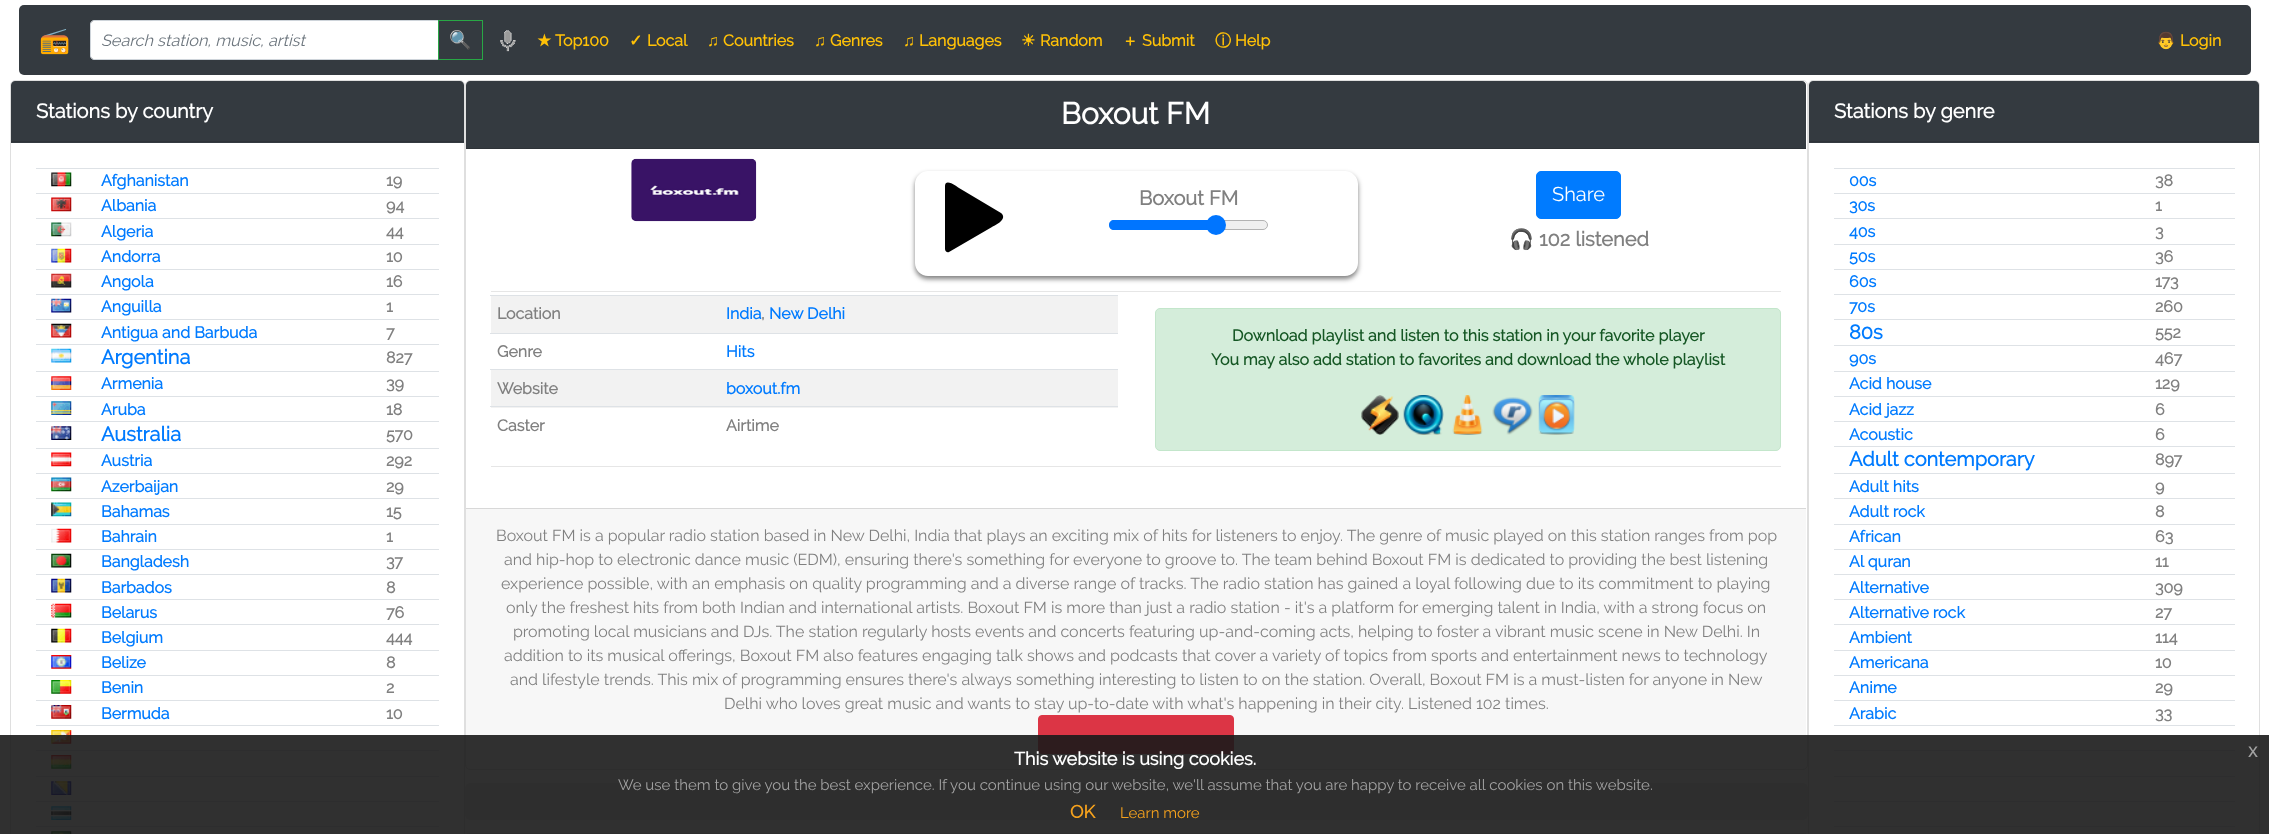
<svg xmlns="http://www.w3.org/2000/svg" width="2269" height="834">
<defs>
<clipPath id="clip1"><path d="M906 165h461v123h-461zm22 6h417c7 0 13 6 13 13v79c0 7-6 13-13 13h-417c-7 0-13-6-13-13v-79c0-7 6-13 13-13z" clip-rule="evenodd"/></clipPath>
</defs>
<rect width="100%" height="100%" fill="#fff"/>
<rect x="19" y="5" width="2232" height="70" rx="5" fill="#343a40"/>
<text x="39" y="49" style="font-family:Noto Color Emoji;font-size:25px;font-weight:bold;fill:#fff">📻</text>
<path d="M93.5 21h344.5v38h-344.5c-1.5 0-2.5-1-2.5-2.5v-33c0-1.5 1-2.5 2.5-2.5z" fill="#fff"/>
<path d="M94 20.5h344.5v39h-344.5c-2 0-3.5-1.5-3.5-3.5v-32c0-2 1.5-3.5 3.5-3.5z" fill="none" stroke="#ced4da"/>
<text x="101" y="46" style="font-family:Raleway;font-size:16.25px;font-style:italic;fill:#6c757d">Search station, music, artist</text>
<rect x="438.5" y="20.5" width="44" height="39" fill="none" stroke="#28a745"/>
<text x="449" y="46" style="font-family:Noto Color Emoji;font-size:18px;fill:#28a745">🔍</text>
<image x="500" y="30" width="16" height="22" href="media/1.png"/>
<text x="537" y="46" style="font-family:DejaVu Sans;font-size:16px;font-weight:bold;fill:#ffc107">★</text>
<text x="555" y="46" style="font-family:Raleway;font-size:16px;font-weight:bold;fill:#ffc107">Top100</text>
<text x="629" y="46" style="font-family:DejaVu Sans;font-size:16px;font-weight:bold;fill:#ffc107">✓</text>
<text x="647" y="46" style="font-family:Raleway;font-size:16px;font-weight:bold;fill:#ffc107">Local</text>
<text x="707" y="46" style="font-family:Liberation Sans;font-size:16px;font-weight:bold;fill:#ffc107">♫</text>
<text x="723" y="46" style="font-family:Raleway;font-size:16px;font-weight:bold;fill:#ffc107">Countries</text>
<text x="814" y="46" style="font-family:Liberation Sans;font-size:16px;font-weight:bold;fill:#ffc107">♫</text>
<text x="830" y="46" style="font-family:Raleway;font-size:16px;font-weight:bold;fill:#ffc107">Genres</text>
<text x="903" y="46" style="font-family:Liberation Sans;font-size:16px;font-weight:bold;fill:#ffc107">♫</text>
<text x="919" y="46" style="font-family:Raleway;font-size:16px;font-weight:bold;fill:#ffc107">Languages</text>
<text x="1021" y="46" style="font-family:DejaVu Sans;font-size:16px;font-weight:bold;fill:#ffc107">☀</text>
<text x="1040" y="46" style="font-family:Raleway;font-size:16px;font-weight:bold;fill:#ffc107">Random</text>
<text x="1122" y="46" style="font-family:WenQuanYi Zen Hei;font-size:16px;font-weight:bold;fill:#ffc107">＋</text>
<text x="1142" y="46" style="font-family:Raleway;font-size:16px;font-weight:bold;fill:#ffc107">Submit</text>
<text x="1215" y="46" style="font-family:WenQuanYi Zen Hei;font-size:16px;font-weight:bold;fill:#ffc107">ⓘ</text>
<text x="1235" y="46" style="font-family:Raleway;font-size:16px;font-weight:bold;fill:#ffc107">Help</text>
<text x="2156" y="46" style="font-family:Noto Color Emoji;font-size:16px;font-weight:bold;fill:#ffc107">👨</text>
<text x="2180" y="46" style="font-family:Raleway;font-size:16px;font-weight:bold;fill:#ffc107">Login</text>
<rect x="10.5" y="80.5" width="454" height="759" rx="4.5" fill="none" stroke="#dfdfdf"/>
<path d="M15 81h445c2 0 4 2 4 4v58h-453v-58c0-2 2-4 4-4z" fill="#343a40"/>
<rect x="11" y="141" width="453" height="1" fill="#2e3338"/>
<text x="36" y="118" style="font-family:Raleway;font-size:20px;font-weight:bold;fill:#fff">Stations by country</text>
<image x="51" y="172" width="21" height="15" href="media/2.png"/>
<text x="101" y="186" style="font-family:Raleway;font-size:16px;font-weight:bold;fill:#007bff">Afghanistan</text>
<rect x="36" y="168" width="403" height="1" fill="#dee2e6"/>
<text x="386" y="186" style="font-family:Raleway;font-size:16px;font-weight:bold;fill:#808080">19</text>
<image x="51" y="197" width="21" height="15" href="media/3.png"/>
<text x="101" y="211" style="font-family:Raleway;font-size:16px;font-weight:bold;fill:#007bff">Albania</text>
<rect x="36" y="193" width="403" height="1" fill="#dee2e6"/>
<text x="386" y="211" style="font-family:Raleway;font-size:16px;font-weight:bold;fill:#808080">94</text>
<image x="51" y="222" width="21" height="15" href="media/4.png"/>
<text x="101" y="237" style="font-family:Raleway;font-size:16px;font-weight:bold;fill:#007bff">Algeria</text>
<rect x="36" y="218" width="403" height="1" fill="#dee2e6"/>
<text x="386" y="237" style="font-family:Raleway;font-size:16px;font-weight:bold;fill:#808080">44</text>
<image x="51" y="248" width="21" height="15" href="media/5.png"/>
<text x="101" y="262" style="font-family:Raleway;font-size:16px;font-weight:bold;fill:#007bff">Andorra</text>
<rect x="36" y="244" width="403" height="1" fill="#dee2e6"/>
<text x="386" y="262" style="font-family:Raleway;font-size:16px;font-weight:bold;fill:#808080">10</text>
<image x="51" y="273" width="21" height="15" href="media/6.png"/>
<text x="101" y="287" style="font-family:Raleway;font-size:16px;font-weight:bold;fill:#007bff">Angola</text>
<rect x="36" y="269" width="403" height="1" fill="#dee2e6"/>
<text x="386" y="287" style="font-family:Raleway;font-size:16px;font-weight:bold;fill:#808080">16</text>
<image x="51" y="298" width="21" height="15" href="media/7.png"/>
<text x="101" y="312" style="font-family:Raleway;font-size:16px;font-weight:bold;fill:#007bff">Anguilla</text>
<rect x="36" y="294" width="403" height="1" fill="#dee2e6"/>
<text x="386" y="312" style="font-family:Raleway;font-size:16px;font-weight:bold;fill:#808080">1</text>
<image x="51" y="323" width="21" height="15" href="media/8.png"/>
<text x="101" y="338" style="font-family:Raleway;font-size:16px;font-weight:bold;fill:#007bff">Antigua and Barbuda</text>
<rect x="36" y="319" width="403" height="1" fill="#dee2e6"/>
<text x="386" y="338" style="font-family:Raleway;font-size:16px;font-weight:bold;fill:#808080">7</text>
<image x="51" y="348" width="21" height="15" href="media/9.png"/>
<text x="101" y="364" style="font-family:Raleway;font-size:20px;font-weight:bold;fill:#007bff">Argentina</text>
<rect x="36" y="344" width="403" height="1" fill="#dee2e6"/>
<text x="386" y="363" style="font-family:Raleway;font-size:16px;font-weight:bold;fill:#808080">827</text>
<image x="51" y="376" width="21" height="14" href="media/10.png"/>
<text x="101" y="389" style="font-family:Raleway;font-size:16px;font-weight:bold;fill:#007bff">Armenia</text>
<rect x="36" y="371" width="403" height="1" fill="#dee2e6"/>
<text x="386" y="389" style="font-family:Raleway;font-size:16px;font-weight:bold;fill:#808080">39</text>
<image x="51" y="401" width="21" height="14" href="media/11.png"/>
<text x="101" y="415" style="font-family:Raleway;font-size:16px;font-weight:bold;fill:#007bff">Aruba</text>
<rect x="36" y="396" width="403" height="1" fill="#dee2e6"/>
<text x="386" y="415" style="font-family:Raleway;font-size:16px;font-weight:bold;fill:#808080">18</text>
<image x="51" y="426" width="21" height="14" href="media/12.png"/>
<text x="101" y="441" style="font-family:Raleway;font-size:20px;font-weight:bold;fill:#007bff">Australia</text>
<rect x="36" y="421" width="403" height="1" fill="#dee2e6"/>
<text x="386" y="440" style="font-family:Raleway;font-size:16px;font-weight:bold;fill:#808080">570</text>
<image x="51" y="452" width="21" height="15" href="media/13.png"/>
<text x="101" y="466" style="font-family:Raleway;font-size:16px;font-weight:bold;fill:#007bff">Austria</text>
<rect x="36" y="448" width="403" height="1" fill="#dee2e6"/>
<text x="386" y="466" style="font-family:Raleway;font-size:16px;font-weight:bold;fill:#808080">292</text>
<image x="51" y="477" width="21" height="15" href="media/14.png"/>
<text x="101" y="492" style="font-family:Raleway;font-size:16px;font-weight:bold;fill:#007bff">Azerbaijan</text>
<rect x="36" y="473" width="403" height="1" fill="#dee2e6"/>
<text x="386" y="492" style="font-family:Raleway;font-size:16px;font-weight:bold;fill:#808080">29</text>
<image x="51" y="502" width="21" height="15" href="media/15.png"/>
<text x="101" y="517" style="font-family:Raleway;font-size:16px;font-weight:bold;fill:#007bff">Bahamas</text>
<rect x="36" y="498" width="403" height="1" fill="#dee2e6"/>
<text x="386" y="517" style="font-family:Raleway;font-size:16px;font-weight:bold;fill:#808080">15</text>
<image x="51" y="528" width="21" height="15" href="media/16.png"/>
<text x="101" y="542" style="font-family:Raleway;font-size:16px;font-weight:bold;fill:#007bff">Bahrain</text>
<rect x="36" y="524" width="403" height="1" fill="#dee2e6"/>
<text x="386" y="542" style="font-family:Raleway;font-size:16px;font-weight:bold;fill:#808080">1</text>
<image x="51" y="553" width="21" height="15" href="media/17.png"/>
<text x="101" y="567" style="font-family:Raleway;font-size:16px;font-weight:bold;fill:#007bff">Bangladesh</text>
<rect x="36" y="549" width="403" height="1" fill="#dee2e6"/>
<text x="386" y="567" style="font-family:Raleway;font-size:16px;font-weight:bold;fill:#808080">37</text>
<image x="51" y="578" width="21" height="15" href="media/18.png"/>
<text x="101" y="593" style="font-family:Raleway;font-size:16px;font-weight:bold;fill:#007bff">Barbados</text>
<rect x="36" y="574" width="403" height="1" fill="#dee2e6"/>
<text x="386" y="593" style="font-family:Raleway;font-size:16px;font-weight:bold;fill:#808080">8</text>
<image x="51" y="603" width="21" height="15" href="media/19.png"/>
<text x="101" y="618" style="font-family:Raleway;font-size:16px;font-weight:bold;fill:#007bff">Belarus</text>
<rect x="36" y="599" width="403" height="1" fill="#dee2e6"/>
<text x="386" y="618" style="font-family:Raleway;font-size:16px;font-weight:bold;fill:#808080">76</text>
<image x="51" y="628" width="21" height="15" href="media/20.png"/>
<text x="101" y="643" style="font-family:Raleway;font-size:16px;font-weight:bold;fill:#007bff">Belgium</text>
<rect x="36" y="624" width="403" height="1" fill="#dee2e6"/>
<text x="386" y="643" style="font-family:Raleway;font-size:16px;font-weight:bold;fill:#808080">444</text>
<image x="51" y="655" width="21" height="14" href="media/21.png"/>
<text x="101" y="668" style="font-family:Raleway;font-size:16px;font-weight:bold;fill:#007bff">Belize</text>
<rect x="36" y="650" width="403" height="1" fill="#dee2e6"/>
<text x="386" y="668" style="font-family:Raleway;font-size:16px;font-weight:bold;fill:#808080">8</text>
<image x="51" y="680" width="21" height="14" href="media/22.png"/>
<text x="101" y="693" style="font-family:Raleway;font-size:16px;font-weight:bold;fill:#007bff">Benin</text>
<rect x="36" y="675" width="403" height="1" fill="#dee2e6"/>
<text x="386" y="693" style="font-family:Raleway;font-size:16px;font-weight:bold;fill:#808080">2</text>
<image x="51" y="705" width="21" height="14" href="media/23.png"/>
<text x="101" y="719" style="font-family:Raleway;font-size:16px;font-weight:bold;fill:#007bff">Bermuda</text>
<rect x="36" y="700" width="403" height="1" fill="#dee2e6"/>
<text x="386" y="719" style="font-family:Raleway;font-size:16px;font-weight:bold;fill:#808080">10</text>
<rect x="36" y="725" width="403" height="1" fill="#dee2e6"/>
<image x="51" y="730" width="21" height="14" href="media/24.png"/>
<rect x="36" y="750" width="403" height="1" fill="#dee2e6"/>
<image x="51" y="755" width="21" height="14" href="media/25.png"/>
<rect x="36" y="776" width="403" height="1" fill="#dee2e6"/>
<image x="51" y="781" width="21" height="14" href="media/26.png"/>
<rect x="36" y="801" width="403" height="1" fill="#dee2e6"/>
<image x="51" y="806" width="21" height="14" href="media/27.png"/>
<rect x="36" y="826" width="403" height="1" fill="#dee2e6"/>
<image x="51" y="831" width="21" height="3" href="media/28.png"/>
<rect x="465.5" y="80.5" width="1342" height="689" rx="4.5" fill="none" stroke="#dfdfdf"/>
<path d="M470 81h1332c2 0 4 2 4 4v64h-1340v-64c0-2 2-4 4-4z" fill="#343a40"/>
<rect x="466" y="148" width="1340" height="1" fill="#2e3338"/>
<text x="1061" y="124" style="font-family:Raleway;font-size:30px;font-weight:bold;fill:#fff">Boxout FM</text>
<image x="631" y="158" width="126" height="64" href="media/29.png"/>
<g clip-path="url(#clip1)">
<rect x="915" y="174" width="443" height="105" rx="13" fill="#00000080" filter="blur(2.5px)"/>
</g>
<path d="M1001 213l-42-25c0 0-14-11-14-2v63c0 2 2 4 4 3l43-25c4-2 16-8 9-14z" fill="#000"/>
<text x="1139" y="205" style="font-family:Raleway;font-size:20px;font-weight:bold;fill:#808080">Boxout FM</text>
<rect x="1109.5" y="220.5" width="158" height="9" rx="4.5" fill="#efefef" stroke="#b2b2b2"/>
<path d="M1114 220h102v10h-102c-3 0-5-2-5-5c0-3 2-5 5-5z" fill="#0075ff"/>
<circle cx="1216" cy="225" r="10" fill="#0075ff"/>
<rect x="1536.5" y="171.5" width="84" height="47" rx="4.5" fill="#007bff" stroke="#007bff"/>
<text x="1552" y="201" style="font-family:Raleway;font-size:20px;fill:#fff">Share</text>
<text x="1509" y="246" style="font-family:Noto Color Emoji;font-size:20px;font-weight:bold;fill:#808080">🎧</text>
<text x="1539" y="246" style="font-family:Raleway;font-size:20px;font-weight:bold;fill:#808080">102 listened</text>
<rect x="491" y="291" width="1290" height="1" fill="#e6e6e6"/>
<rect x="491" y="296" width="627" height="37" fill="#f2f2f2"/>
<text x="497" y="319" style="font-family:Raleway;font-size:16px;font-weight:bold;fill:#808080">Location</text>
<rect x="490" y="295" width="628" height="1" fill="#dee2e6"/>
<text x="726" y="319" style="font-family:Raleway;font-size:16px;font-weight:bold;fill:#007bff">India</text>
<text x="761" y="319" style="font-family:Raleway;font-size:16px;font-weight:bold;fill:#808080">,</text>
<text x="769" y="319" style="font-family:Raleway;font-size:16px;font-weight:bold;fill:#007bff">New Delhi</text>
<text x="497" y="357" style="font-family:Raleway;font-size:16px;font-weight:bold;fill:#808080">Genre</text>
<rect x="490" y="333" width="628" height="1" fill="#dee2e6"/>
<text x="726" y="357" style="font-family:Raleway;font-size:16px;font-weight:bold;fill:#007bff">Hits</text>
<rect x="491" y="370" width="627" height="38" fill="#f2f2f2"/>
<text x="497" y="394" style="font-family:Raleway;font-size:16px;font-weight:bold;fill:#808080">Website</text>
<rect x="490" y="369" width="628" height="1" fill="#dee2e6"/>
<text x="726" y="394" style="font-family:Raleway;font-size:16px;font-weight:bold;fill:#007bff">boxout.fm</text>
<text x="497" y="431" style="font-family:Raleway;font-size:16px;font-weight:bold;fill:#808080">Caster</text>
<rect x="490" y="406" width="628" height="1" fill="#dee2e6"/>
<text x="726" y="431" style="font-family:Raleway;font-size:16px;font-weight:bold;fill:#808080">Airtime</text>
<rect x="1155.5" y="308.5" width="625" height="142" rx="4.5" fill="#d4edda" stroke="#c3e6cb"/>
<text x="1232" y="341" style="font-family:Raleway;font-size:16px;font-weight:bold;fill:#155724">Download playlist and listen to this station in your favorite player</text>
<text x="1211" y="365" style="font-family:Raleway;font-size:16px;font-weight:bold;fill:#155724">You may also add station to favorites and download the whole playlist</text>
<image x="1361" y="395" width="38" height="40" href="media/30.png"/>
<image x="1403" y="395" width="41" height="40" href="media/31.png"/>
<image x="1452" y="395" width="31" height="40" href="media/32.png"/>
<image x="1492" y="397" width="41" height="38" href="media/33.png"/>
<image x="1538" y="395" width="37" height="40" href="media/34.png"/>
<rect x="491" y="466" width="1290" height="1" fill="#e6e6e6"/>
<rect x="466" y="509" width="1340" height="260" fill="#00000008"/>
<rect x="466" y="508" width="1340" height="1" fill="#d8d8d8"/>
<text x="496" y="541" style="font-family:Raleway;font-size:16px;fill:#808080">Boxout FM is a popular radio station based in New Delhi, India that plays an exciting mix of hits for listeners to enjoy. The genre of music played on this station ranges from pop</text>
<text x="504" y="565" style="font-family:Raleway;font-size:16px;fill:#808080">and hip-hop to electronic dance music (EDM), ensuring there's something for everyone to groove to. The team behind Boxout FM is dedicated to providing the best listening</text>
<text x="501" y="589" style="font-family:Raleway;font-size:16px;fill:#808080">experience possible, with an emphasis on quality programming and a diverse range of tracks. The radio station has gained a loyal following due to its commitment to playing</text>
<text x="506" y="613" style="font-family:Raleway;font-size:16px;fill:#808080">only the freshest hits from both Indian and international artists. Boxout FM is more than just a radio station - it's a platform for emerging talent in India, with a strong focus on</text>
<text x="513" y="637" style="font-family:Raleway;font-size:16px;fill:#808080">promoting local musicians and DJs. The station regularly hosts events and concerts featuring up-and-coming acts, helping to foster a vibrant music scene in New Delhi. In</text>
<text x="504" y="661" style="font-family:Raleway;font-size:16px;fill:#808080">addition to its musical offerings, Boxout FM also features engaging talk shows and podcasts that cover a variety of topics from sports and entertainment news to technology</text>
<text x="510" y="685" style="font-family:Raleway;font-size:16px;fill:#808080">and lifestyle trends. This mix of programming ensures there's always something interesting to listen to on the station. Overall, Boxout FM is a must-listen for anyone in New</text>
<text x="724" y="709" style="font-family:Raleway;font-size:16px;fill:#808080">Delhi who loves great music and wants to stay up-to-date with what's happening in their city. Listened 102 times.</text>
<rect x="1038.5" y="715.5" width="195" height="38" rx="3.5" fill="#dc3545" stroke="#dc3545"/>
<rect x="1808.5" y="80.5" width="451" height="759" rx="4.5" fill="none" stroke="#dfdfdf"/>
<path d="M1813 81h442c2 0 4 2 4 4v58h-450v-58c0-2 2-4 4-4z" fill="#343a40"/>
<rect x="1809" y="141" width="450" height="1" fill="#2e3338"/>
<text x="1834" y="118" style="font-family:Raleway;font-size:20px;font-weight:bold;fill:#fff">Stations by genre</text>
<text x="1849" y="186" style="font-family:Raleway;font-size:16px;font-weight:bold;fill:#007bff">00s</text>
<rect x="1834" y="168" width="401" height="1" fill="#dee2e6"/>
<text x="2155" y="186" style="font-family:Raleway;font-size:16px;font-weight:bold;fill:#808080">38</text>
<text x="1849" y="211" style="font-family:Raleway;font-size:16px;font-weight:bold;fill:#007bff">30s</text>
<rect x="1834" y="193" width="401" height="1" fill="#dee2e6"/>
<text x="2155" y="211" style="font-family:Raleway;font-size:16px;font-weight:bold;fill:#808080">1</text>
<text x="1849" y="237" style="font-family:Raleway;font-size:16px;font-weight:bold;fill:#007bff">40s</text>
<rect x="1834" y="218" width="401" height="1" fill="#dee2e6"/>
<text x="2155" y="237" style="font-family:Raleway;font-size:16px;font-weight:bold;fill:#808080">3</text>
<text x="1849" y="262" style="font-family:Raleway;font-size:16px;font-weight:bold;fill:#007bff">50s</text>
<rect x="1834" y="244" width="401" height="1" fill="#dee2e6"/>
<text x="2155" y="262" style="font-family:Raleway;font-size:16px;font-weight:bold;fill:#808080">36</text>
<text x="1849" y="287" style="font-family:Raleway;font-size:16px;font-weight:bold;fill:#007bff">60s</text>
<rect x="1834" y="269" width="401" height="1" fill="#dee2e6"/>
<text x="2155" y="287" style="font-family:Raleway;font-size:16px;font-weight:bold;fill:#808080">173</text>
<text x="1849" y="312" style="font-family:Raleway;font-size:16px;font-weight:bold;fill:#007bff">70s</text>
<rect x="1834" y="294" width="401" height="1" fill="#dee2e6"/>
<text x="2155" y="312" style="font-family:Raleway;font-size:16px;font-weight:bold;fill:#808080">260</text>
<text x="1849" y="339" style="font-family:Raleway;font-size:20px;font-weight:bold;fill:#007bff">80s</text>
<rect x="1834" y="319" width="401" height="1" fill="#dee2e6"/>
<text x="2155" y="338" style="font-family:Raleway;font-size:16px;font-weight:bold;fill:#808080">552</text>
<text x="1849" y="364" style="font-family:Raleway;font-size:16px;font-weight:bold;fill:#007bff">90s</text>
<rect x="1834" y="345" width="401" height="1" fill="#dee2e6"/>
<text x="2155" y="364" style="font-family:Raleway;font-size:16px;font-weight:bold;fill:#808080">467</text>
<text x="1849" y="389" style="font-family:Raleway;font-size:16px;font-weight:bold;fill:#007bff">Acid house</text>
<rect x="1834" y="371" width="401" height="1" fill="#dee2e6"/>
<text x="2155" y="389" style="font-family:Raleway;font-size:16px;font-weight:bold;fill:#808080">129</text>
<text x="1849" y="415" style="font-family:Raleway;font-size:16px;font-weight:bold;fill:#007bff">Acid jazz</text>
<rect x="1834" y="396" width="401" height="1" fill="#dee2e6"/>
<text x="2155" y="415" style="font-family:Raleway;font-size:16px;font-weight:bold;fill:#808080">6</text>
<text x="1849" y="440" style="font-family:Raleway;font-size:16px;font-weight:bold;fill:#007bff">Acoustic</text>
<rect x="1834" y="421" width="401" height="1" fill="#dee2e6"/>
<text x="2155" y="440" style="font-family:Raleway;font-size:16px;font-weight:bold;fill:#808080">6</text>
<text x="1849" y="466" style="font-family:Raleway;font-size:20px;font-weight:bold;fill:#007bff">Adult contemporary</text>
<rect x="1834" y="446" width="401" height="1" fill="#dee2e6"/>
<text x="2155" y="465" style="font-family:Raleway;font-size:16px;font-weight:bold;fill:#808080">897</text>
<text x="1849" y="492" style="font-family:Raleway;font-size:16px;font-weight:bold;fill:#007bff">Adult hits</text>
<rect x="1834" y="473" width="401" height="1" fill="#dee2e6"/>
<text x="2155" y="492" style="font-family:Raleway;font-size:16px;font-weight:bold;fill:#808080">9</text>
<text x="1849" y="517" style="font-family:Raleway;font-size:16px;font-weight:bold;fill:#007bff">Adult rock</text>
<rect x="1834" y="498" width="401" height="1" fill="#dee2e6"/>
<text x="2155" y="517" style="font-family:Raleway;font-size:16px;font-weight:bold;fill:#808080">8</text>
<text x="1849" y="542" style="font-family:Raleway;font-size:16px;font-weight:bold;fill:#007bff">African</text>
<rect x="1834" y="524" width="401" height="1" fill="#dee2e6"/>
<text x="2155" y="542" style="font-family:Raleway;font-size:16px;font-weight:bold;fill:#808080">63</text>
<text x="1849" y="567" style="font-family:Raleway;font-size:16px;font-weight:bold;fill:#007bff">Al quran</text>
<rect x="1834" y="549" width="401" height="1" fill="#dee2e6"/>
<text x="2155" y="567" style="font-family:Raleway;font-size:16px;font-weight:bold;fill:#808080">11</text>
<text x="1849" y="593" style="font-family:Raleway;font-size:16px;font-weight:bold;fill:#007bff">Alternative</text>
<rect x="1834" y="574" width="401" height="1" fill="#dee2e6"/>
<text x="2155" y="593" style="font-family:Raleway;font-size:16px;font-weight:bold;fill:#808080">309</text>
<text x="1849" y="618" style="font-family:Raleway;font-size:16px;font-weight:bold;fill:#007bff">Alternative rock</text>
<rect x="1834" y="599" width="401" height="1" fill="#dee2e6"/>
<text x="2155" y="618" style="font-family:Raleway;font-size:16px;font-weight:bold;fill:#808080">27</text>
<text x="1849" y="643" style="font-family:Raleway;font-size:16px;font-weight:bold;fill:#007bff">Ambient</text>
<rect x="1834" y="624" width="401" height="1" fill="#dee2e6"/>
<text x="2155" y="643" style="font-family:Raleway;font-size:16px;font-weight:bold;fill:#808080">114</text>
<text x="1849" y="668" style="font-family:Raleway;font-size:16px;font-weight:bold;fill:#007bff">Americana</text>
<rect x="1834" y="650" width="401" height="1" fill="#dee2e6"/>
<text x="2155" y="668" style="font-family:Raleway;font-size:16px;font-weight:bold;fill:#808080">10</text>
<text x="1849" y="693" style="font-family:Raleway;font-size:16px;font-weight:bold;fill:#007bff">Anime</text>
<rect x="1834" y="675" width="401" height="1" fill="#dee2e6"/>
<text x="2155" y="693" style="font-family:Raleway;font-size:16px;font-weight:bold;fill:#808080">29</text>
<text x="1849" y="719" style="font-family:Raleway;font-size:16px;font-weight:bold;fill:#007bff">Arabic</text>
<rect x="1834" y="700" width="401" height="1" fill="#dee2e6"/>
<text x="2155" y="719" style="font-family:Raleway;font-size:16px;font-weight:bold;fill:#808080">33</text>
<rect x="1834" y="725" width="401" height="1" fill="#dee2e6"/>
<rect x="1834" y="750" width="401" height="1" fill="#dee2e6"/>
<rect x="1834" y="776" width="401" height="1" fill="#dee2e6"/>
<rect x="1834" y="801" width="401" height="1" fill="#dee2e6"/>
<rect x="1834" y="826" width="401" height="1" fill="#dee2e6"/>
<rect x="465" y="783" width="1343" height="37" rx="5" fill="#e9e9e9"/>
<rect x="465.5" y="833.5" width="1342" height="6" rx="4.5" fill="none" stroke="#dfdfdf"/>
<rect y="735" width="2269" height="99" fill="#191919e6"/>
<text x="1014" y="765" style="font-family:Raleway;font-size:18px;font-weight:bold;fill:#fff">This website is using cookies.</text>
<text x="2248" y="757" style="font-family:Liberation Sans;font-size:20px;fill:#a2a2a2">x</text>
<text x="618" y="790" style="font-family:Raleway;font-size:15px;fill:#a2a2a2">We use them to give you the best experience. If you continue using our website, we'll assume that you are happy to receive all cookies on this website.</text>
<text x="1070" y="818" style="font-family:Raleway;font-size:18px;font-weight:bold;fill:#f6a21d">OK</text>
<text x="1120" y="818" style="font-family:Raleway;font-size:15px;fill:#f6a21d">Learn more</text>
</svg>
